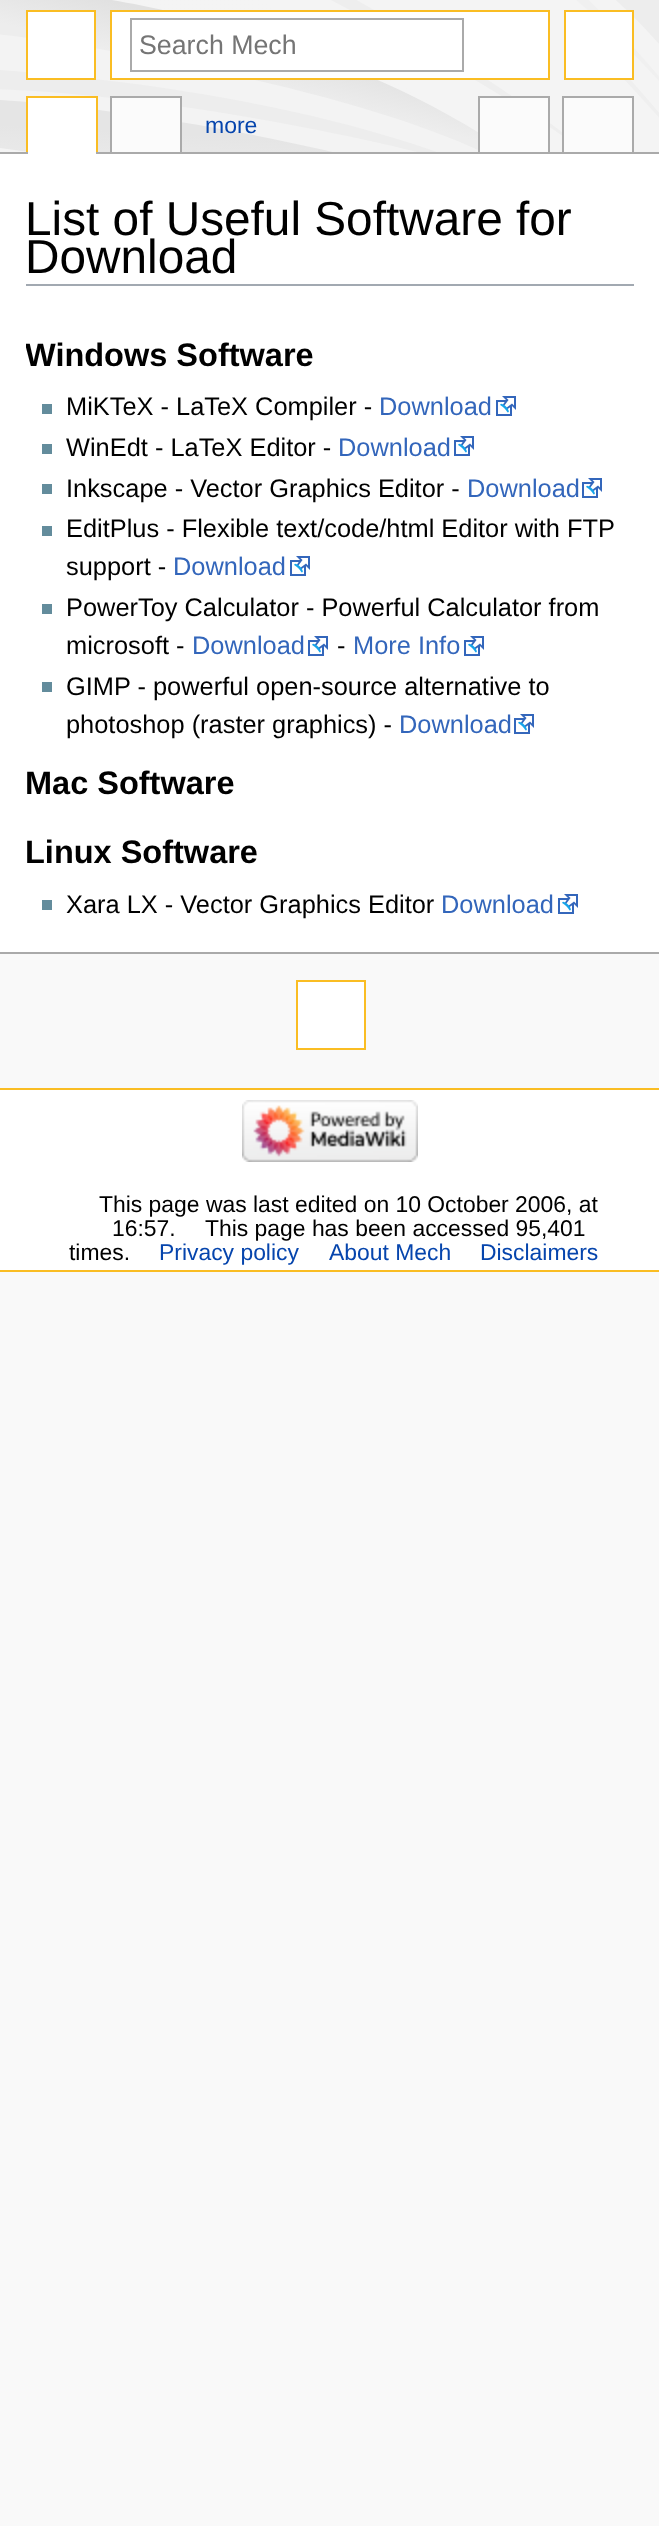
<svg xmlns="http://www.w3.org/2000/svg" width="659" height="2526">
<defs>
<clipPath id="clip1"><rect x="26" y="320" width="608" height="60"/></clipPath>
</defs>
<rect width="100%" height="100%" fill="#f9f9f9"/>
<image x="0" y="0" width="659" height="152" href="media/1.png"/>
<rect x="27" y="11" width="68" height="68" fill="#fff" stroke="#fabd23" stroke-width="2"/>
<rect x="111" y="11" width="438" height="68" fill="#fff" stroke="#fabd23" stroke-width="2"/>
<rect x="131" y="19" width="332" height="52" fill="none" stroke="#aaa" stroke-width="2"/>
<text x="139" y="54" style="font-family:Liberation Sans;font-size:26.75px;fill:#757575">Search Mech</text>
<rect x="565" y="11" width="68" height="68" fill="#fff" stroke="#fabd23" stroke-width="2"/>
<rect x="26" y="96" width="72" height="2" fill="#fabd23"/>
<rect x="96" y="96" width="2" height="58" fill="#fabd23"/>
<rect x="26" y="96" width="2" height="58" fill="#fabd23"/>
<rect x="110" y="96" width="72" height="2" fill="#aaa"/>
<rect x="180" y="96" width="2" height="58" fill="#aaa"/>
<rect x="110" y="96" width="2" height="58" fill="#aaa"/>
<rect x="478" y="96" width="72" height="2" fill="#aaa"/>
<rect x="548" y="96" width="2" height="58" fill="#aaa"/>
<rect x="478" y="96" width="2" height="58" fill="#aaa"/>
<rect x="562" y="96" width="72" height="2" fill="#aaa"/>
<rect x="632" y="96" width="2" height="58" fill="#aaa"/>
<rect x="562" y="96" width="2" height="58" fill="#aaa"/>
<rect y="152" width="659" height="2" fill="#aaa"/>
<rect x="28" y="98" width="68" height="56" fill="#fff"/>
<rect x="112" y="98" width="68" height="54" fill="#fbfbfb"/>
<text x="205" y="133" style="font-family:Liberation Sans;font-size:23px;fill:#0645ad">more</text>
<rect x="480" y="98" width="68" height="54" fill="#fbfbfb"/>
<rect x="564" y="98" width="68" height="54" fill="#fbfbfb"/>
<rect x="297" y="981" width="68" height="68" fill="#fff" stroke="#fabd23" stroke-width="2"/>
<rect y="154" width="659" height="798" fill="#fff"/>
<rect y="952" width="659" height="2" fill="#aaa"/>
<rect x="26" y="284" width="608" height="2" fill="#a2a9b1"/>
<text x="25" y="235" style="font-family:Liberation Sans;font-size:47.75px;fill:#000">List of Useful Software for</text>
<text x="25" y="273" style="font-family:Liberation Sans;font-size:47.75px;fill:#000">Download</text>
<g clip-path="url(#clip1)">
<text x="25" y="366" style="font-family:Liberation Sans;font-size:32.5px;font-weight:bold;fill:#000">Windows Software</text>
</g>
<rect x="42" y="404" width="10" height="10" fill="#638c9c"/>
<text x="66" y="415" style="font-family:Liberation Sans;font-size:25.4px;fill:#000">MiKTeX - LaTeX Compiler -</text>
<text x="379" y="415" style="font-family:Liberation Sans;font-size:25.4px;fill:#36b">Download</text>
<image x="496" y="396" width="20" height="20" href="media/2.png"/>
<rect x="42" y="444" width="10" height="10" fill="#638c9c"/>
<text x="66" y="456" style="font-family:Liberation Sans;font-size:25.4px;fill:#000">WinEdt - LaTeX Editor -</text>
<text x="338" y="456" style="font-family:Liberation Sans;font-size:25.4px;fill:#36b">Download</text>
<image x="454" y="436" width="20" height="20" href="media/2.png"/>
<rect x="42" y="484" width="10" height="10" fill="#638c9c"/>
<text x="66" y="497" style="font-family:Liberation Sans;font-size:25.4px;fill:#000">Inkscape - Vector Graphics Editor -</text>
<text x="467" y="497" style="font-family:Liberation Sans;font-size:25.4px;fill:#36b">Download</text>
<image x="582" y="478" width="20" height="20" href="media/2.png"/>
<rect x="42" y="526" width="10" height="10" fill="#638c9c"/>
<text x="66" y="537" style="font-family:Liberation Sans;font-size:25.4px;fill:#000">EditPlus - Flexible text/code/html Editor with FTP</text>
<text x="66" y="575" style="font-family:Liberation Sans;font-size:25.4px;fill:#000">support -</text>
<text x="173" y="575" style="font-family:Liberation Sans;font-size:25.4px;fill:#36b">Download</text>
<image x="290" y="556" width="20" height="20" href="media/2.png"/>
<rect x="42" y="604" width="10" height="10" fill="#638c9c"/>
<text x="66" y="616" style="font-family:Liberation Sans;font-size:25.4px;fill:#000">PowerToy Calculator - Powerful Calculator from</text>
<text x="66" y="654" style="font-family:Liberation Sans;font-size:25.4px;fill:#000">microsoft -</text>
<text x="192" y="654" style="font-family:Liberation Sans;font-size:25.4px;fill:#36b">Download</text>
<image x="308" y="636" width="20" height="20" href="media/2.png"/>
<text x="337" y="654" style="font-family:Liberation Sans;font-size:25.4px;fill:#000">-</text>
<text x="353" y="654" style="font-family:Liberation Sans;font-size:25.4px;fill:#36b">More Info</text>
<image x="464" y="636" width="20" height="20" href="media/2.png"/>
<rect x="42" y="682" width="10" height="10" fill="#638c9c"/>
<text x="66" y="695" style="font-family:Liberation Sans;font-size:25.4px;fill:#000">GIMP - powerful open-source alternative to</text>
<text x="66" y="733" style="font-family:Liberation Sans;font-size:25.4px;fill:#000">photoshop (raster graphics) -</text>
<text x="399" y="733" style="font-family:Liberation Sans;font-size:25.4px;fill:#36b">Download</text>
<image x="514" y="714" width="20" height="20" href="media/2.png"/>
<text x="25" y="794" style="font-family:Liberation Sans;font-size:32.5px;font-weight:bold;fill:#000">Mac Software</text>
<text x="25" y="863" style="font-family:Liberation Sans;font-size:32.5px;font-weight:bold;fill:#000">Linux Software</text>
<rect x="42" y="900" width="10" height="10" fill="#638c9c"/>
<text x="66" y="913" style="font-family:Liberation Sans;font-size:25.4px;fill:#000">Xara LX - Vector Graphics Editor</text>
<text x="441" y="913" style="font-family:Liberation Sans;font-size:25.4px;fill:#36b">Download</text>
<image x="558" y="894" width="20" height="20" href="media/2.png"/>
<rect y="1090" width="659" height="180" fill="#fff"/>
<rect y="1088" width="659" height="2" fill="#fabd23"/>
<rect y="1270" width="659" height="2" fill="#fabd23"/>
<image x="242" y="1100" width="176" height="62" href="media/3.png"/>
<text x="99" y="1212" style="font-family:Liberation Sans;font-size:22.9px;fill:#000">This page was last edited on 10 October 2006, at</text>
<text x="112" y="1236" style="font-family:Liberation Sans;font-size:22.9px;fill:#000">16:57.</text>
<text x="205" y="1236" style="font-family:Liberation Sans;font-size:22.9px;fill:#000">This page has been accessed 95,401</text>
<text x="69" y="1260" style="font-family:Liberation Sans;font-size:22.9px;fill:#000">times.</text>
<text x="159" y="1260" style="font-family:Liberation Sans;font-size:22.9px;fill:#0645ad">Privacy policy</text>
<text x="329" y="1260" style="font-family:Liberation Sans;font-size:22.9px;fill:#0645ad">About Mech</text>
<text x="480" y="1260" style="font-family:Liberation Sans;font-size:22.9px;fill:#0645ad">Disclaimers</text>
</svg>
